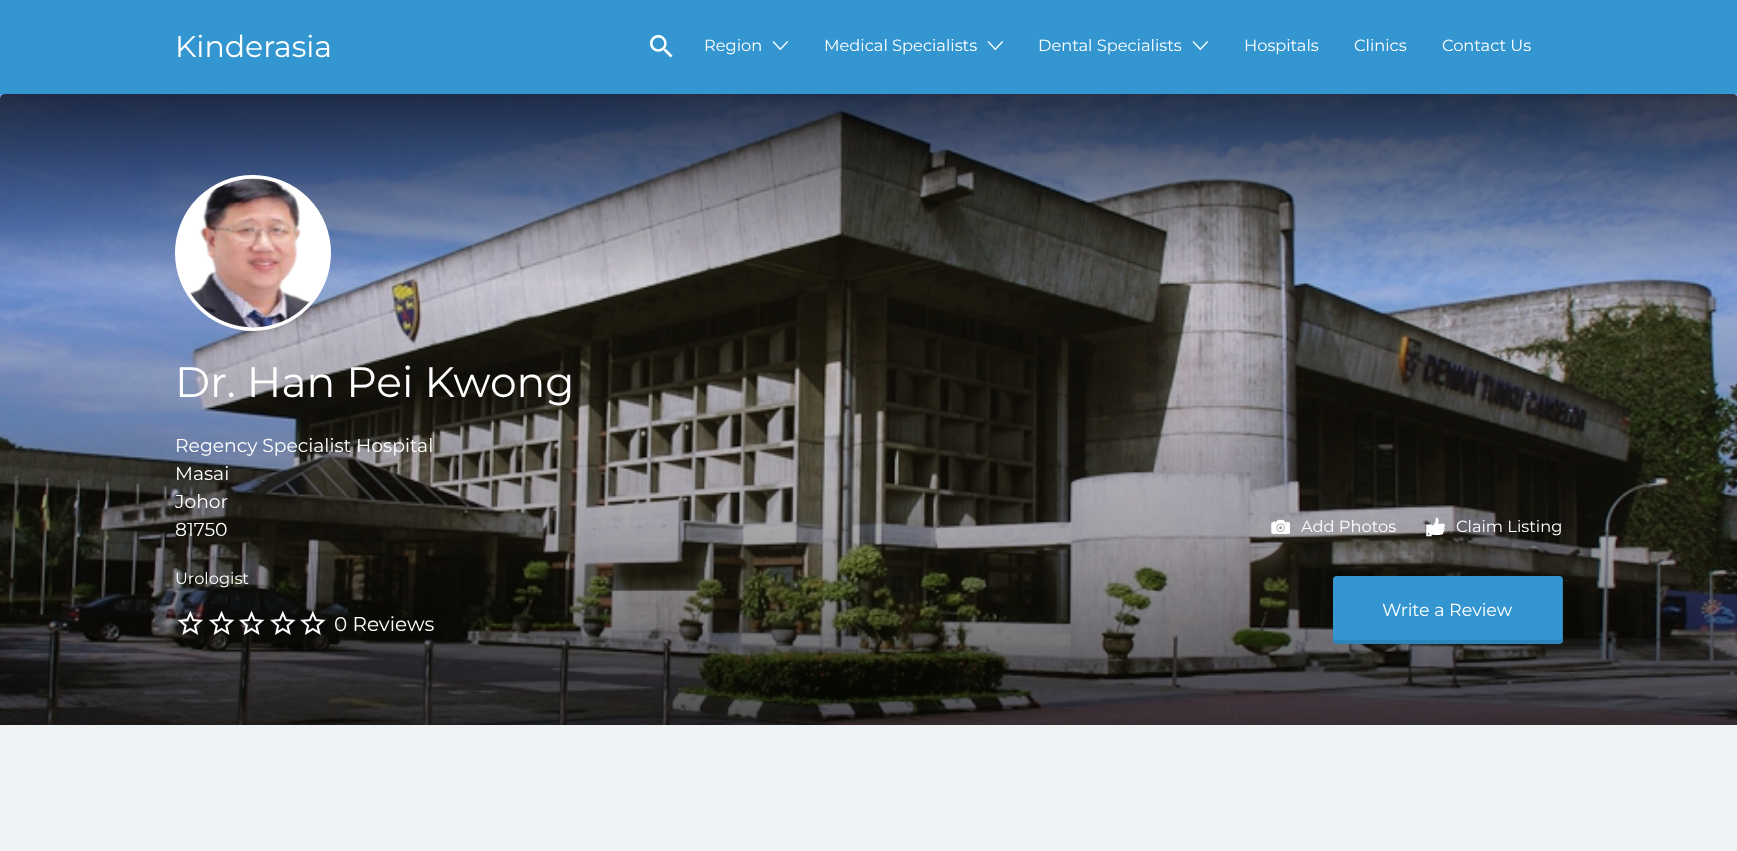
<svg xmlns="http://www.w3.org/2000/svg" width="1737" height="851">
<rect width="100%" height="100%" fill="#f0f3f6"/>
<rect width="1737" height="94" fill="#3396d1"/>
<text x="175" y="57" style="font-family:Montserrat;font-size:30px;fill:#fff">Kinderasia</text>
<image x="650" y="35" width="23" height="23" href="media/1.png"/>
<text x="704" y="51" style="font-family:Montserrat;font-size:16.25px;fill:#fff">Region</text>
<image x="772" y="41" width="16" height="10" href="media/2.png"/>
<text x="824" y="51" style="font-family:Montserrat;font-size:16.25px;fill:#fff">Medical Specialists</text>
<image x="987" y="41" width="16" height="10" href="media/2.png"/>
<text x="1038" y="51" style="font-family:Montserrat;font-size:16.25px;fill:#fff">Dental Specialists</text>
<image x="1192" y="41" width="16" height="10" href="media/2.png"/>
<text x="1244" y="51" style="font-family:Montserrat;font-size:16.25px;fill:#fff">Hospitals</text>
<text x="1354" y="51" style="font-family:Montserrat;font-size:16.25px;fill:#fff">Clinics</text>
<text x="1442" y="51" style="font-family:Montserrat;font-size:16.25px;fill:#fff">Contact Us</text>
<image x="0" y="94" width="1737" height="631" href="media/3.png"/>
<circle cx="253" cy="253" r="76" fill="#fff" stroke="#fff" stroke-width="4"/>
<image x="190" y="178" width="120" height="150" href="media/4.png"/>
<text x="175" y="397" style="font-family:Montserrat;font-size:42.5px;fill:#fff">Dr. Han Pei Kwong</text>
<text x="175" y="452" style="font-family:Montserrat;font-size:18.75px;fill:#fff">Regency Specialist Hospital</text>
<text x="175" y="480" style="font-family:Montserrat;font-size:18.75px;fill:#fff">Masai</text>
<text x="175" y="508" style="font-family:Montserrat;font-size:18.75px;fill:#fff">Johor</text>
<text x="175" y="536" style="font-family:Montserrat;font-size:18.75px;fill:#fff">81750</text>
<text x="175" y="584" style="font-family:Montserrat;font-size:16.25px;fill:#fff">Urologist</text>
<image x="177" y="610" width="26" height="25" href="media/5.png"/>
<image x="208" y="610" width="27" height="25" href="media/6.png"/>
<image x="238" y="610" width="27" height="25" href="media/7.png"/>
<image x="270" y="610" width="26" height="25" href="media/8.png"/>
<image x="300" y="610" width="26" height="25" href="media/9.png"/>
<text x="334" y="631" style="font-family:Montserrat;font-size:20px;fill:#fff">0 Reviews</text>
<image x="1271" y="519" width="19" height="15" href="media/10.png"/>
<text x="1301" y="532" style="font-family:Montserrat;font-size:16.25px;fill:#fff">Add Photos</text>
<image x="1426" y="517" width="19" height="20" href="media/11.png"/>
<text x="1456" y="532" style="font-family:Montserrat;font-size:16.25px;fill:#fff">Claim Listing</text>
<rect x="1333" y="576" width="230" height="68" rx="4" fill="#3396d1"/>
<path d="M1333 638v2c0 2 2 4 4 4h222c2 0 4-2 4-4v-60c0-1 0-2-1-3v59c0 2-1 4-3 4h-223c-1 0-2-1-3-2z" fill="#0000001a"/>
<text x="1382" y="616" style="font-family:Montserrat;font-size:17.5px;fill:#fff">Write a Review</text>
</svg>
